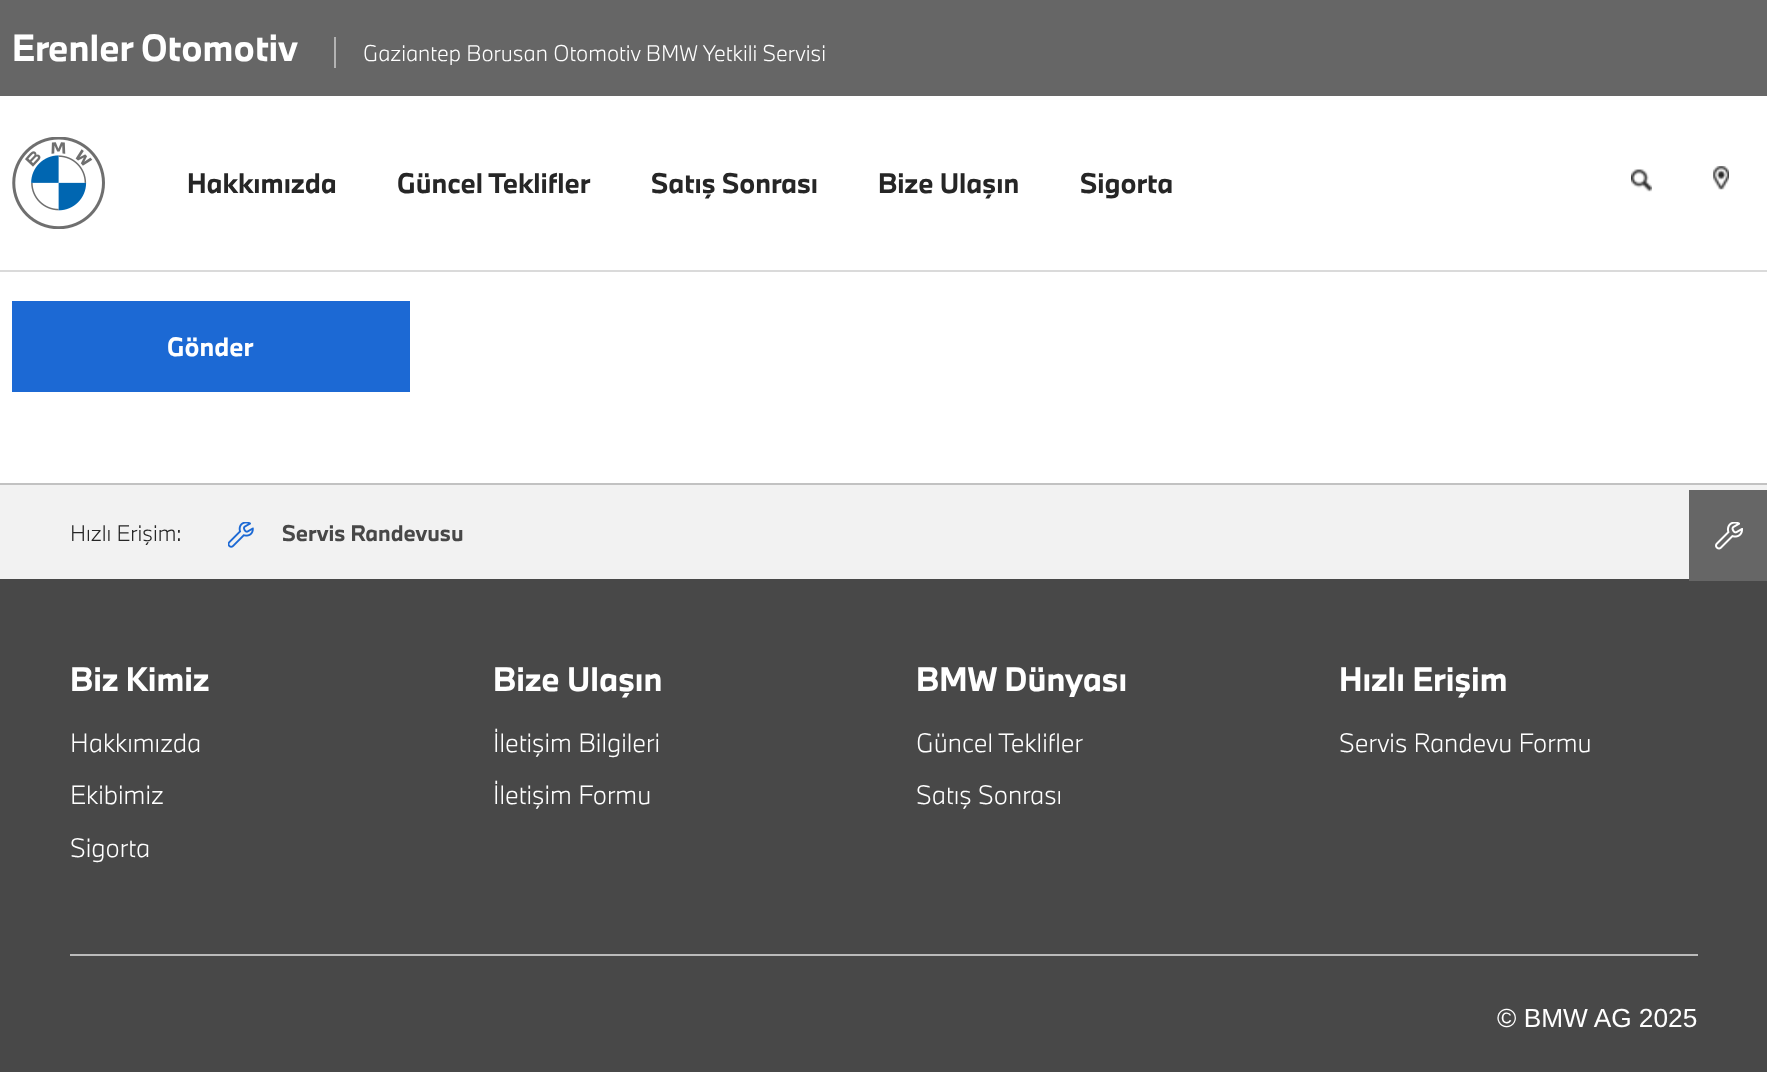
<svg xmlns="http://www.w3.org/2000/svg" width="1767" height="1072">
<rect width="100%" height="100%" fill="#fff"/>
<rect width="1767" height="96" fill="#666"/>
<text x="12" y="61" style="font-family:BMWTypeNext;font-size:35px;font-weight:bold;fill:#fff">Erenler Otomotiv</text>
<rect x="334" y="37" width="2" height="31" fill="#b3b3b3"/>
<text x="363" y="61" style="font-family:BMWTypeNext;font-size:21px;font-weight:300;fill:#fff">Gaziantep Borusan Otomotiv BMW</text>
<text x="703" y="61" style="font-family:BMWTypeNext;font-size:21px;font-weight:300;fill:#fff">Yetkili Servisi</text>
<image x="12" y="137" width="93" height="92" href="media/1.png"/>
<rect y="270" width="1767" height="2" fill="#dadada"/>
<text x="187" y="193" style="font-family:BMWTypeNext;font-size:26.25px;font-weight:bold;fill:#262626">Hakkımızda</text>
<text x="397" y="193" style="font-family:BMWTypeNext;font-size:26.25px;font-weight:bold;fill:#262626">Güncel Teklifler</text>
<text x="651" y="193" style="font-family:BMWTypeNext;font-size:26.25px;font-weight:bold;fill:#262626">Satış Sonrası</text>
<text x="878" y="193" style="font-family:BMWTypeNext;font-size:26.25px;font-weight:bold;fill:#262626">Bize Ulaşın</text>
<text x="1080" y="193" style="font-family:BMWTypeNext;font-size:26.25px;font-weight:bold;fill:#262626">Sigorta</text>
<image x="1631" y="169" width="21" height="23" href="media/2.png"/>
<image x="1713" y="166" width="16" height="24" href="media/3.png"/>
<rect x="12" y="301" width="398" height="91" fill="#1c69d4"/>
<text x="167" y="356" style="font-family:BMWTypeNext;font-size:24.5px;font-weight:bold;fill:#fff">Gönder</text>
<rect y="485" width="1767" height="94" fill="#f2f2f2"/>
<rect y="579" width="1767" height="493" fill="#484848"/>
<rect x="1689" y="490" width="78" height="91" fill="#666"/>
<image x="1715" y="522" width="28" height="28" href="media/4.png"/>
<rect y="483" width="1767" height="2" fill="#c2c2c2"/>
<text x="70" y="541" style="font-family:BMWTypeNext;font-size:21px;font-weight:300;fill:#262626">Hızlı Erişim:</text>
<image x="228" y="522" width="26" height="26" href="media/5.png"/>
<text x="282" y="541" style="font-family:BMWTypeNext;font-size:21px;font-weight:bold;fill:#484848">Servis Randevusu</text>
<text x="70" y="691" style="font-family:BMWTypeNext;font-size:31.5px;font-weight:bold;fill:#fff">Biz Kimiz</text>
<text x="70" y="752" style="font-family:BMWTypeNext;font-size:24.5px;font-weight:300;fill:#fff">Hakkımızda</text>
<text x="70" y="804" style="font-family:BMWTypeNext;font-size:24.5px;font-weight:300;fill:#fff">Ekibimiz</text>
<text x="70" y="857" style="font-family:BMWTypeNext;font-size:24.5px;font-weight:300;fill:#fff">Sigorta</text>
<text x="493" y="691" style="font-family:BMWTypeNext;font-size:31.5px;font-weight:bold;fill:#fff">Bize Ulaşın</text>
<text x="493" y="752" style="font-family:BMWTypeNext;font-size:24.5px;font-weight:300;fill:#fff">İletişim Bilgileri</text>
<text x="493" y="804" style="font-family:BMWTypeNext;font-size:24.5px;font-weight:300;fill:#fff">İletişim Formu</text>
<text x="916" y="691" style="font-family:BMWTypeNext;font-size:31.5px;font-weight:bold;fill:#fff">BMW Dünyası</text>
<text x="916" y="752" style="font-family:BMWTypeNext;font-size:24.5px;font-weight:300;fill:#fff">Güncel Teklifler</text>
<text x="916" y="804" style="font-family:BMWTypeNext;font-size:24.5px;font-weight:300;fill:#fff">Satış Sonrası</text>
<text x="1339" y="691" style="font-family:BMWTypeNext;font-size:31.5px;font-weight:bold;fill:#fff">Hızlı Erişim</text>
<text x="1339" y="752" style="font-family:BMWTypeNext;font-size:24.5px;font-weight:300;fill:#fff">Servis Randevu Formu</text>
<rect x="70" y="954" width="1628" height="2" fill="#bbb"/>
<text x="1497" y="1027" style="font-family:Liberation Sans;font-size:26.25px;fill:#fff">© BMW AG 2025</text>
</svg>
